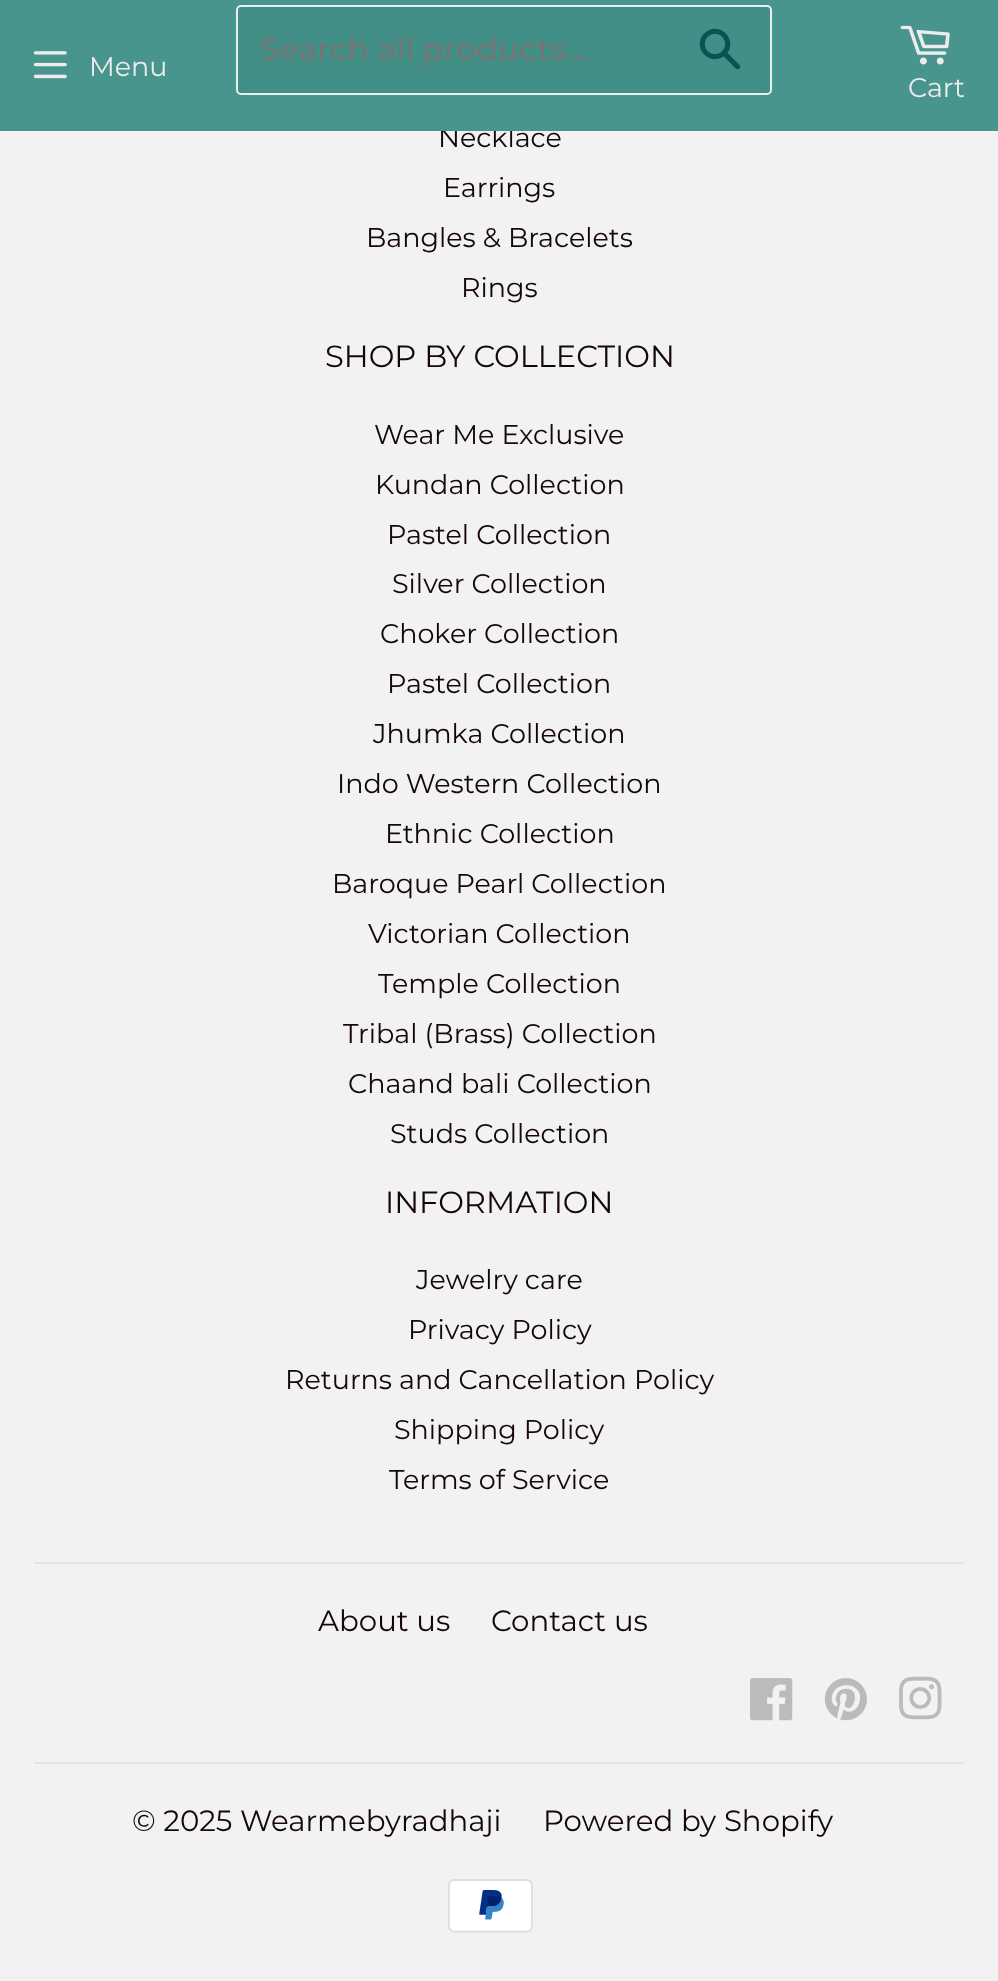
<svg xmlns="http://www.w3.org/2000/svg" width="998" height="1981">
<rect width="100%" height="100%" fill="#f2f2f2"/>
<text x="438" y="147" style="font-family:Montserrat;font-size:27px;fill:#160707">Necklace</text>
<rect width="998" height="131" fill="#48958d"/>
<image x="33" y="51" width="34" height="28" href="media/1.png"/>
<text x="89" y="76" style="font-family:Montserrat;font-size:27px;fill:#ececec">Menu</text>
<rect x="237" y="6" width="534" height="88" rx="4" fill="#418f87" stroke="#ececec" stroke-width="2"/>
<text x="260" y="60" style="font-family:Montserrat;font-size:31.5px;font-weight:500;fill:#757575">Search all products...</text>
<image x="699" y="28" width="42" height="42" href="media/2.png"/>
<image x="900" y="25" width="50" height="40" href="media/3.png"/>
<text x="908" y="97" style="font-family:Montserrat;font-size:27px;fill:#ececec">Cart</text>
<text x="443" y="197" style="font-family:Montserrat;font-size:27px;fill:#160707">Earrings</text>
<text x="366" y="247" style="font-family:Montserrat;font-size:27px;fill:#160707">Bangles &amp; Bracelets</text>
<text x="461" y="297" style="font-family:Montserrat;font-size:27px;fill:#160707">Rings</text>
<text x="325" y="367" style="font-family:Montserrat;font-size:30.6px;fill:#160707">SHOP BY COLLECTION</text>
<text x="374" y="444" style="font-family:Montserrat;font-size:27px;fill:#160707">Wear Me Exclusive</text>
<text x="375" y="494" style="font-family:Montserrat;font-size:27px;fill:#160707">Kundan Collection</text>
<text x="387" y="544" style="font-family:Montserrat;font-size:27px;fill:#160707">Pastel Collection</text>
<text x="392" y="593" style="font-family:Montserrat;font-size:27px;fill:#160707">Silver Collection</text>
<text x="380" y="643" style="font-family:Montserrat;font-size:27px;fill:#160707">Choker Collection</text>
<text x="387" y="693" style="font-family:Montserrat;font-size:27px;fill:#160707">Pastel Collection</text>
<text x="373" y="743" style="font-family:Montserrat;font-size:27px;fill:#160707">Jhumka Collection</text>
<text x="337" y="793" style="font-family:Montserrat;font-size:27px;fill:#160707">Indo Western Collection</text>
<text x="385" y="843" style="font-family:Montserrat;font-size:27px;fill:#160707">Ethnic Collection</text>
<text x="332" y="893" style="font-family:Montserrat;font-size:27px;fill:#160707">Baroque Pearl Collection</text>
<text x="368" y="943" style="font-family:Montserrat;font-size:27px;fill:#160707">Victorian Collection</text>
<text x="378" y="993" style="font-family:Montserrat;font-size:27px;fill:#160707">Temple Collection</text>
<text x="343" y="1043" style="font-family:Montserrat;font-size:27px;fill:#160707">Tribal (Brass) Collection</text>
<text x="348" y="1093" style="font-family:Montserrat;font-size:27px;fill:#160707">Chaand bali Collection</text>
<text x="390" y="1143" style="font-family:Montserrat;font-size:27px;fill:#160707">Studs Collection</text>
<text x="385" y="1213" style="font-family:Montserrat;font-size:30.6px;fill:#160707">INFORMATION</text>
<text x="416" y="1289" style="font-family:Montserrat;font-size:27px;fill:#160707">Jewelry care</text>
<text x="408" y="1339" style="font-family:Montserrat;font-size:27px;fill:#160707">Privacy Policy</text>
<text x="285" y="1389" style="font-family:Montserrat;font-size:27px;fill:#160707">Returns and Cancellation Policy</text>
<text x="394" y="1439" style="font-family:Montserrat;font-size:27px;fill:#160707">Shipping Policy</text>
<text x="389" y="1489" style="font-family:Montserrat;font-size:27px;fill:#160707">Terms of Service</text>
<rect x="34" y="1562" width="931" height="2" fill="#e5e5e5"/>
<text x="318" y="1631" style="font-family:Montserrat;font-size:29.25px;fill:#160707">About us</text>
<text x="491" y="1631" style="font-family:Montserrat;font-size:29.25px;fill:#160707">Contact us</text>
<image x="750" y="1678" width="43" height="43" href="media/4.png"/>
<image x="824" y="1678" width="43" height="43" href="media/5.png"/>
<image x="899" y="1676" width="43" height="44" href="media/6.png"/>
<rect x="34" y="1762" width="931" height="2" fill="#e5e5e5"/>
<text x="132" y="1831" style="font-family:Montserrat;font-size:29.25px;fill:#160707">© 2025 Wearmebyradhaji</text>
<text x="543" y="1831" style="font-family:Montserrat;font-size:29.25px;fill:#160707">Powered by Shopify</text>
<image x="448" y="1879" width="85" height="54" href="media/7.png"/>
</svg>
